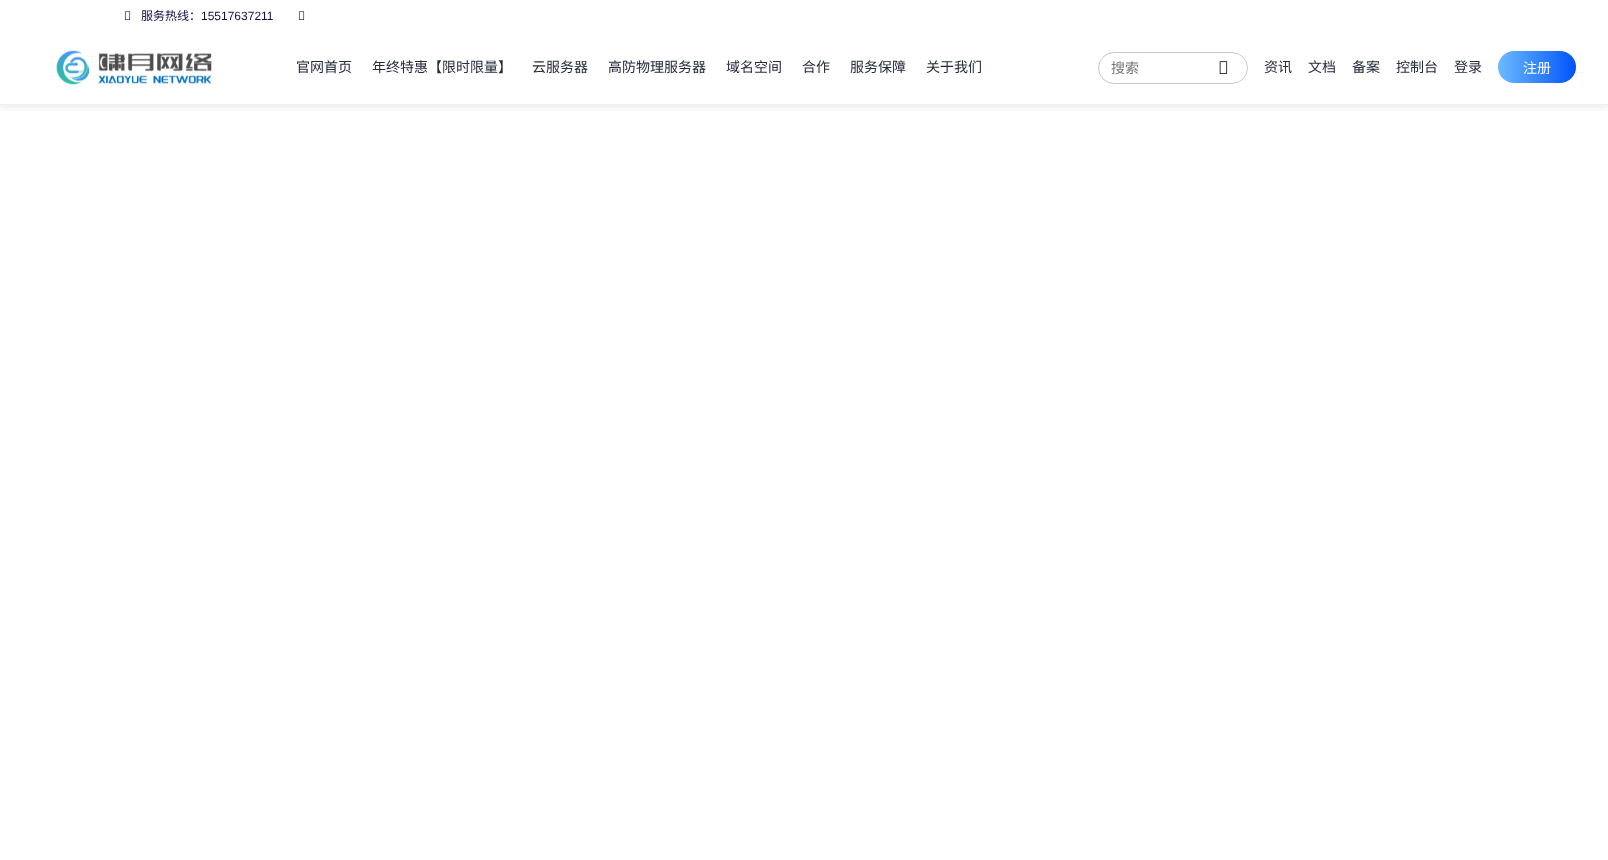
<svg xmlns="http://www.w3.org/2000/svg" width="1608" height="860">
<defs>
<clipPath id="clip1"><rect x="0" y="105" width="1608" height="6"/></clipPath>
<linearGradient id="g1" gradientUnits="userSpaceOnUse" x1="1576" y1="67" x2="1498" y2="67"><stop offset="0" stop-color="#0053fb"/><stop offset="1" stop-color="#6cbbff"/></linearGradient>
</defs>
<rect width="100%" height="100%" fill="#fff"/>
<image x="125" y="11" width="6" height="9" href="media/1.png"/>
<text x="141" y="20" style="font-family:Noto Sans CJK SC;font-size:12px;fill:#1a0b45">服务热线：</text>
<text x="201" y="20" style="font-family:Liberation Sans;font-size:12px;fill:#1a0b45">15517637211</text>
<image x="299" y="11" width="6" height="9" href="media/1.png"/>
<g clip-path="url(#clip1)">
<rect y="33" width="1608" height="75" fill="#00000014" filter="blur(4px)"/>
</g>
<rect y="104" width="1608" height="1" fill="#efefef"/>
<image x="56" y="50" width="156" height="35" href="media/2.png"/>
<text x="296" y="72" style="font-family:Noto Sans CJK SC;font-size:14px;fill:#252b3a">官网首页</text>
<text x="372" y="72" style="font-family:Noto Sans CJK SC;font-size:14px;fill:#252b3a">年终特惠【限时限量】</text>
<text x="532" y="72" style="font-family:Noto Sans CJK SC;font-size:14px;fill:#252b3a">云服务器</text>
<text x="608" y="72" style="font-family:Noto Sans CJK SC;font-size:14px;fill:#252b3a">高防物理服务器</text>
<text x="726" y="72" style="font-family:Noto Sans CJK SC;font-size:14px;fill:#252b3a">域名空间</text>
<text x="802" y="72" style="font-family:Noto Sans CJK SC;font-size:14px;fill:#252b3a">合作</text>
<text x="850" y="72" style="font-family:Noto Sans CJK SC;font-size:14px;fill:#252b3a">服务保障</text>
<text x="926" y="72" style="font-family:Noto Sans CJK SC;font-size:14px;fill:#252b3a">关于我们</text>
<rect x="1098.5" y="52.5" width="149" height="31" rx="15.5" fill="none" stroke="#c9c9c9"/>
<text x="1111" y="73" style="font-family:Noto Sans CJK SC;font-size:14px;fill:#757575">搜索</text>
<image x="1219" y="61" width="9" height="13" href="media/3.png"/>
<text x="1264" y="72" style="font-family:Noto Sans CJK SC;font-size:14px;fill:#252b3a">资讯</text>
<text x="1308" y="72" style="font-family:Noto Sans CJK SC;font-size:14px;fill:#252b3a">文档</text>
<text x="1352" y="72" style="font-family:Noto Sans CJK SC;font-size:14px;fill:#252b3a">备案</text>
<text x="1396" y="72" style="font-family:Noto Sans CJK SC;font-size:14px;fill:#252b3a">控制台</text>
<text x="1454" y="72" style="font-family:Noto Sans CJK SC;font-size:14px;fill:#252b3a">登录</text>
<rect x="1498" y="51" width="78" height="32" rx="16" fill="url(#g1)"/>
<text x="1523" y="73" style="font-family:Noto Sans CJK SC;font-size:14px;fill:#fff">注册</text>
</svg>
